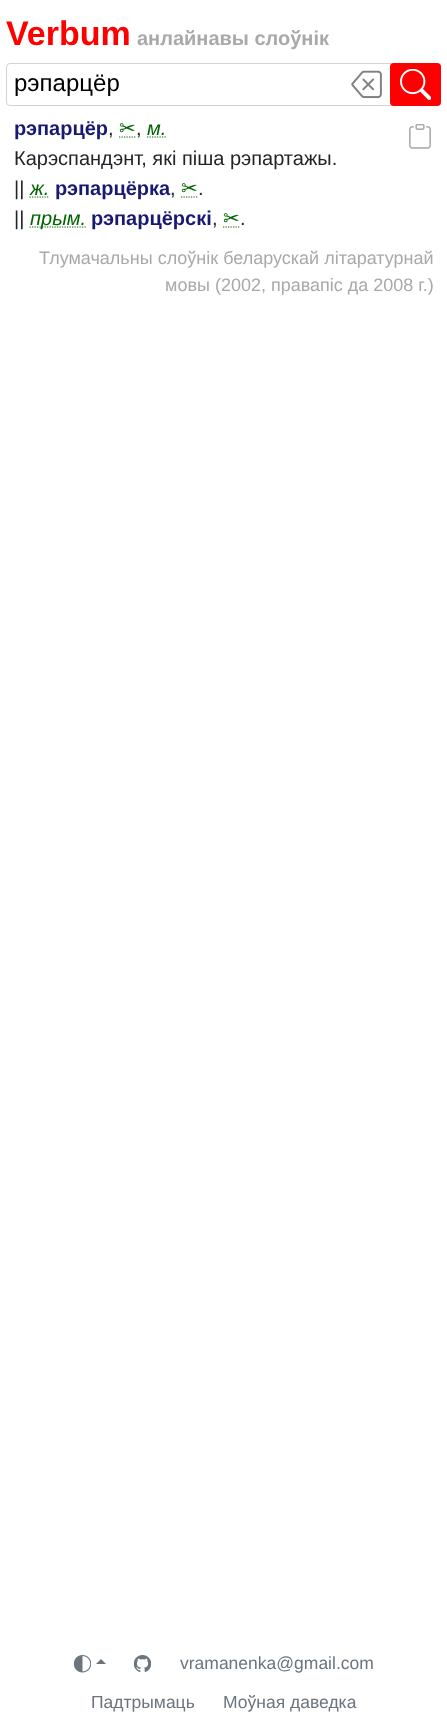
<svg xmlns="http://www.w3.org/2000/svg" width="447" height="1727">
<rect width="100%" height="100%" fill="#fff"/>
<text x="6" y="45" style="font-family:Liberation Sans;font-size:34px;font-weight:bold;fill:#f00">Verbum</text>
<text x="137" y="45" style="font-family:Liberation Sans;font-size:20px;font-weight:bold;fill:#a9a9a9">анлайнавы слоўнік</text>
<rect x="6.5" y="63.5" width="434" height="42" rx="3.5" fill="none" stroke="#d3d3d3"/>
<text x="14" y="91" style="font-family:Liberation Sans;font-size:24px;fill:#000">рэпарцёр</text>
<image x="351" y="70" width="31" height="29" href="media/1.png"/>
<rect x="390" y="63" width="51" height="43" rx="4" fill="#f00"/>
<image x="400" y="69" width="31" height="31" href="media/2.png"/>
<text x="14" y="135" style="font-family:Liberation Sans;font-size:20px;font-weight:bold;fill:#191970">рэпарцёр</text>
<text x="108" y="135" style="font-family:Liberation Sans;font-size:20px;fill:#212529">,</text>
<text x="119" y="135" style="font-family:DejaVu Sans;font-size:20px;fill:#006400">✂</text>
<path d="M119 137h16.5" fill="none" stroke="#006400" stroke-width="1.2" stroke-dasharray="1.25 1.25"/>
<text x="136" y="135" style="font-family:Liberation Sans;font-size:20px;fill:#212529">,</text>
<text x="147" y="135" style="font-family:Liberation Sans;font-size:20px;font-style:italic;fill:#006400">м.</text>
<path d="M147 137h19" fill="none" stroke="#006400" stroke-width="1.2" stroke-dasharray="1.25 1.25"/>
<text x="14" y="165" style="font-family:Liberation Sans;font-size:20px;fill:#212529">Карэспандэнт, які піша рэпартажы.</text>
<text x="14" y="195" style="font-family:Liberation Sans;font-size:20px;fill:#212529">||</text>
<text x="30" y="195" style="font-family:Liberation Sans;font-size:20px;font-style:italic;fill:#006400">ж.</text>
<path d="M29.5 197h19.5" fill="none" stroke="#006400" stroke-width="1.2" stroke-dasharray="1.25 1.25"/>
<text x="55" y="195" style="font-family:Liberation Sans;font-size:20px;font-weight:bold;fill:#191970">рэпарцёрка</text>
<text x="170" y="195" style="font-family:Liberation Sans;font-size:20px;fill:#212529">,</text>
<text x="181" y="195" style="font-family:DejaVu Sans;font-size:20px;fill:#006400">✂</text>
<path d="M181 197h16.5" fill="none" stroke="#006400" stroke-width="1.2" stroke-dasharray="1.25 1.25"/>
<text x="198" y="195" style="font-family:Liberation Sans;font-size:20px;fill:#212529">.</text>
<text x="14" y="225" style="font-family:Liberation Sans;font-size:20px;fill:#212529">||</text>
<path d="M29.5 227h56.5" fill="none" stroke="#006400" stroke-width="1.2" stroke-dasharray="1.25 1.25"/>
<text x="30" y="225" style="font-family:Liberation Sans;font-size:20px;font-style:italic;fill:#006400">прым.</text>
<text x="91" y="225" style="font-family:Liberation Sans;font-size:20px;font-weight:bold;fill:#191970">рэпарцёрскі</text>
<text x="212" y="225" style="font-family:Liberation Sans;font-size:20px;fill:#212529">,</text>
<text x="223" y="225" style="font-family:DejaVu Sans;font-size:20px;fill:#006400">✂</text>
<path d="M223 227h17" fill="none" stroke="#006400" stroke-width="1.2" stroke-dasharray="1.25 1.25"/>
<text x="240" y="225" style="font-family:Liberation Sans;font-size:20px;fill:#212529">.</text>
<image x="409" y="124" width="22" height="25" href="media/3.png"/>
<text x="39" y="264" style="font-family:Liberation Sans;font-size:18px;fill:#a9a9a9">Тлумачальны слоўнік беларускай літаратурнай</text>
<text x="165" y="291" style="font-family:Liberation Sans;font-size:18px;fill:#a9a9a9">мовы (2002, правапіс да 2008 г.)</text>
<image x="74" y="1655" width="17" height="18" href="media/4.png"/>
<path d="M106 1664h-10l5-5z" fill="#6c757d"/>
<image x="134" y="1655" width="17" height="17" href="media/5.png"/>
<text x="180" y="1669" style="font-family:Liberation Sans;font-size:17.5px;fill:#6c757d">vramanenka@gmail.com</text>
<text x="91" y="1708" style="font-family:Liberation Sans;font-size:17.5px;fill:#6c757d">Падтрымаць</text>
<text x="223" y="1708" style="font-family:Liberation Sans;font-size:17.5px;fill:#6c757d">Моўная даведка</text>
</svg>
